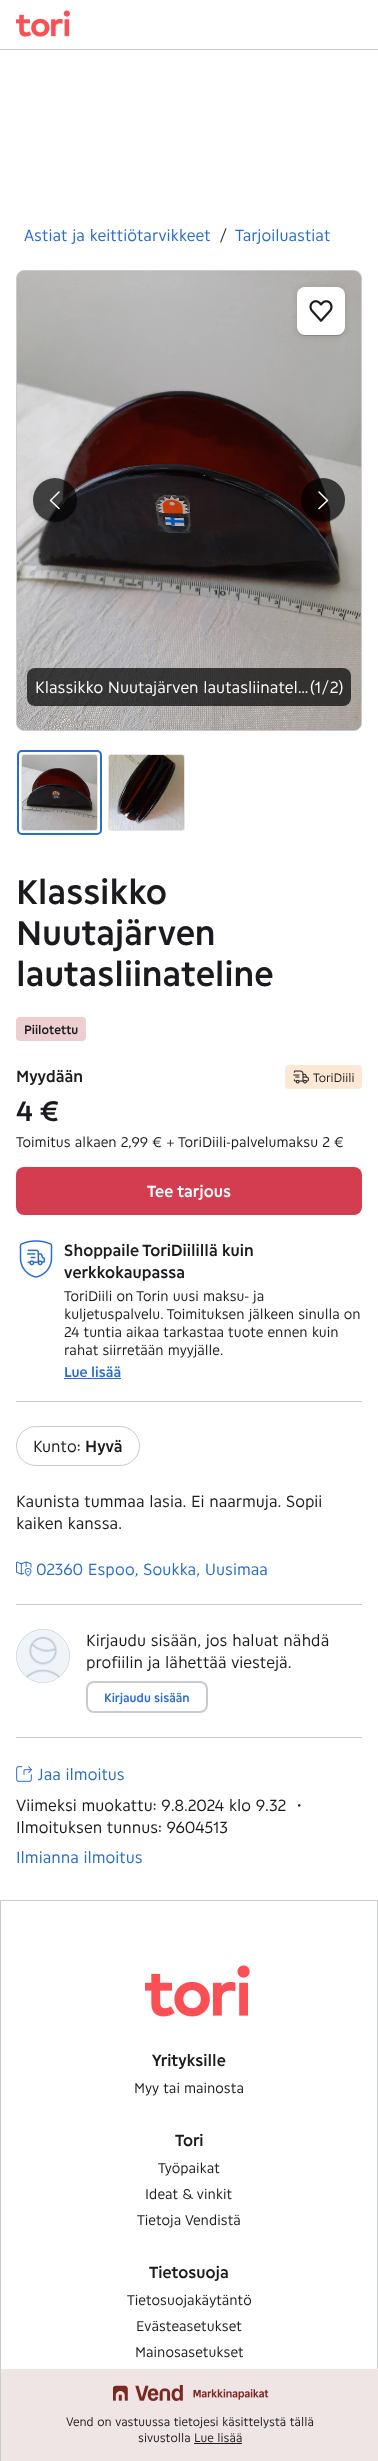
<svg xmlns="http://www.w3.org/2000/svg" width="378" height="2461">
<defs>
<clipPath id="clip1"><path d="M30 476h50v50h-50zm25 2c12 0 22 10 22 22c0 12-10 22-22 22c-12 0-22-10-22-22c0-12 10-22 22-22z" clip-rule="evenodd"/></clipPath>
<clipPath id="clip2"><path d="M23 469h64v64h-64zm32 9c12 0 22 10 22 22c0 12-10 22-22 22c-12 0-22-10-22-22c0-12 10-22 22-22z" clip-rule="evenodd"/></clipPath>
<clipPath id="clip3"><path d="M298 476h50v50h-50zm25 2c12 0 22 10 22 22c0 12-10 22-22 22c-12 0-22-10-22-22c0-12 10-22 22-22z" clip-rule="evenodd"/></clipPath>
</defs>
<rect width="100%" height="100%" fill="#fff"/>
<rect y="49" width="378" height="1" fill="#cacad1"/>
<image x="16" y="10" width="54" height="27" href="media/1.png"/>
<text x="24" y="241" style="font-family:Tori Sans;font-size:16px;fill:#296dcc">Astiat ja keittiötarvikkeet</text>
<text x="219" y="241" style="font-family:Tori Sans;font-size:16px;fill:#1b1b1f">/</text>
<text x="235" y="241" style="font-family:Tori Sans;font-size:16px;fill:#296dcc">Tarjoiluastiat</text>
<rect x="16.5" y="270.5" width="345" height="460" rx="7.5" fill="none" stroke="#cacad1"/>
<image x="17" y="271" width="344" height="459" href="media/2.png"/>
<image x="17" y="271" width="344" height="459" href="media/3.png"/>
<rect x="297" y="288" width="48" height="48" rx="8" fill="#00000029" filter="blur(0.5px)"/>
<rect x="297" y="288" width="48" height="48" rx="8" fill="#0000001f" filter="blur(3px)"/>
<rect x="297" y="287" width="48" height="48" rx="8" fill="#fff"/>
<image x="309" y="300" width="24" height="22" href="media/4.png"/>
<g clip-path="url(#clip1)">
<rect x="33" y="479" width="44" height="44" rx="22" fill="#00000029" filter="blur(0.5px)"/>
</g>
<g clip-path="url(#clip2)">
<rect x="33" y="479" width="44" height="44" rx="22" fill="#0000001f" filter="blur(3px)"/>
</g>
<circle cx="55" cy="500" r="22" fill="#000000b3"/>
<path d="M59 508.5l-8.5-8l8.5-8.5" fill="none" stroke="#fff" stroke-width="1.5" stroke-linecap="round" stroke-linejoin="round"/>
<g clip-path="url(#clip3)">
<rect x="301" y="479" width="44" height="44" rx="22" fill="#00000029" filter="blur(0.5px)"/>
</g>
<circle cx="323" cy="500" r="22" fill="#000000b3"/>
<path d="M319 508.5l8.5-8l-8.5-8.5" fill="none" stroke="#fff" stroke-width="1.5" stroke-linecap="round" stroke-linejoin="round"/>
<rect x="27" y="668" width="324" height="38" rx="8" fill="#000000b3"/>
<text x="35" y="693" style="font-family:Tori Sans;font-size:16px;fill:#fff">Klassikko Nuutajärven lautasliinatel…</text>
<text x="310" y="693" style="font-family:Tori Sans;font-size:16px;fill:#fff">(1/2)</text>
<image x="22" y="755" width="75" height="75" href="media/5.png"/>
<rect x="21.5" y="754.5" width="76" height="76" rx="2.5" fill="none" stroke="#0000001a"/>
<rect x="18" y="751" width="83" height="83" rx="4" fill="none" stroke="#296dcc" stroke-width="2"/>
<image x="109" y="755" width="75" height="75" href="media/6.png"/>
<rect x="108.5" y="754.5" width="76" height="76" rx="2.5" fill="none" stroke="#0000001a"/>
<text x="16" y="904" style="font-family:Tori Sans;font-size:34px;font-weight:bold;fill:#1b1b1f">Klassikko</text>
<text x="16" y="945" style="font-family:Tori Sans;font-size:34px;font-weight:bold;fill:#1b1b1f">Nuutajärven</text>
<text x="16" y="986" style="font-family:Tori Sans;font-size:34px;font-weight:bold;fill:#1b1b1f">lautasliinateline</text>
<rect x="16" y="1017" width="70" height="24" rx="4" fill="#edced1"/>
<text x="24" y="1034" style="font-family:Tori Sans;font-size:12px;font-weight:bold;fill:#1b1b1f">Piilotettu</text>
<text x="16" y="1082" style="font-family:Tori Sans;font-size:16px;font-weight:bold;fill:#1b1b1f">Myydään</text>
<rect x="285" y="1065" width="77" height="24" rx="4" fill="#fde8d5"/>
<image x="293" y="1070" width="16" height="14" href="media/7.png"/>
<text x="313" y="1082" style="font-family:Tori Sans;font-size:12px;fill:#1b1b1f">ToriDiili</text>
<text x="16" y="1121" style="font-family:Tori Sans;font-size:28px;font-weight:bold;fill:#1b1b1f">4 €</text>
<text x="16" y="1147" style="font-family:Tori Sans;font-size:14px;fill:#1b1b1f">Toimitus alkaen 2,99 € + ToriDiili-palvelumaksu 2 €</text>
<rect x="16" y="1167" width="346" height="48" rx="8" fill="#d43d4f"/>
<text x="147" y="1197" style="font-family:Tori Sans;font-size:16px;font-weight:bold;fill:#fff">Tee tarjous</text>
<image x="19" y="1240" width="34" height="38" href="media/8.png"/>
<text x="64" y="1256" style="font-family:Tori Sans;font-size:16px;font-weight:bold;fill:#1b1b1f">Shoppaile ToriDiilillä kuin</text>
<text x="64" y="1278" style="font-family:Tori Sans;font-size:16px;font-weight:bold;fill:#1b1b1f">verkkokaupassa</text>
<text x="64" y="1301" style="font-family:Tori Sans;font-size:14px;fill:#1b1b1f">ToriDiili on Torin uusi maksu- ja</text>
<text x="64" y="1319" style="font-family:Tori Sans;font-size:14px;fill:#1b1b1f">kuljetuspalvelu. Toimituksen jälkeen sinulla on</text>
<text x="64" y="1337" style="font-family:Tori Sans;font-size:14px;fill:#1b1b1f">24 tuntia aikaa tarkastaa tuote ennen kuin</text>
<text x="64" y="1355" style="font-family:Tori Sans;font-size:14px;fill:#1b1b1f">rahat siirretään myyjälle.</text>
<text x="64" y="1377" style="font-family:Tori Sans;font-size:14px;font-weight:bold;fill:#296dcc">Lue lisää</text>
<rect x="64" y="1378" width="57" height="1" fill="#296dcc"/>
<rect x="16" y="1401" width="346" height="1" fill="#cacad1"/>
<rect x="16.5" y="1426.5" width="123" height="39" rx="19.5" fill="none" stroke="#cacad1"/>
<text x="33" y="1452" style="font-family:Tori Sans;font-size:16px;fill:#1b1b1f">Kunto:</text>
<text x="85" y="1452" style="font-family:Tori Sans;font-size:16px;font-weight:bold;fill:#1b1b1f">Hyvä</text>
<text x="16" y="1507" style="font-family:Tori Sans;font-size:16px;fill:#1b1b1f">Kaunista tummaa lasia. Ei naarmuja. Sopii</text>
<text x="16" y="1529" style="font-family:Tori Sans;font-size:16px;fill:#1b1b1f">kaiken kanssa.</text>
<image x="16" y="1561" width="16" height="16" href="media/9.png"/>
<text x="36" y="1575" style="font-family:Tori Sans;font-size:16px;fill:#296dcc">02360 Espoo, Soukka, Uusimaa</text>
<rect x="16" y="1604" width="346" height="1" fill="#cacad1"/>
<image x="16" y="1629" width="54" height="54" href="media/10.png"/>
<text x="86" y="1646" style="font-family:Tori Sans;font-size:16px;fill:#1b1b1f">Kirjaudu sisään, jos haluat nähdä</text>
<text x="86" y="1668" style="font-family:Tori Sans;font-size:16px;fill:#1b1b1f">profiilin ja lähettää viestejä.</text>
<rect x="87" y="1682" width="120" height="30" rx="7" fill="none" stroke="#cacad1" stroke-width="2"/>
<text x="104" y="1702" style="font-family:Tori Sans;font-size:12px;font-weight:bold;fill:#296dcc">Kirjaudu sisään</text>
<rect x="16" y="1737" width="346" height="1" fill="#cacad1"/>
<image x="16" y="1766" width="16" height="16" href="media/11.png"/>
<text x="38" y="1780" style="font-family:Tori Sans;font-size:16px;fill:#296dcc">Jaa ilmoitus</text>
<text x="16" y="1811" style="font-family:Tori Sans;font-size:16px;fill:#1b1b1f">Viimeksi muokattu: 9.8.2024 klo 9.32</text>
<text x="291" y="1811" style="font-family:WenQuanYi Zen Hei;font-size:16px;font-weight:500;fill:#1b1b1f">・</text>
<text x="16" y="1833" style="font-family:Tori Sans;font-size:16px;fill:#1b1b1f">Ilmoituksen tunnus: 9604513</text>
<text x="16" y="1863" style="font-family:Tori Sans;font-size:16px;fill:#296dcc">Ilmianna ilmoitus</text>
<rect y="1900" width="378" height="1" fill="#cacad1"/>
<rect x="377" y="1900" width="1" height="469" fill="#cacad1"/>
<rect y="1900" width="1" height="561" fill="#cacad1"/>
<image x="145" y="1965" width="105" height="52" href="media/12.png"/>
<text x="152" y="2066" style="font-family:Tori Sans;font-size:16px;font-weight:bold;fill:#1b1b1f">Yrityksille</text>
<text x="134" y="2093" style="font-family:Tori Sans;font-size:14px;fill:#1b1b1f">Myy tai mainosta</text>
<text x="175" y="2146" style="font-family:Tori Sans;font-size:16px;font-weight:bold;fill:#1b1b1f">Tori</text>
<text x="158" y="2173" style="font-family:Tori Sans;font-size:14px;fill:#1b1b1f">Työpaikat</text>
<text x="145" y="2199" style="font-family:Tori Sans;font-size:14px;fill:#1b1b1f">Ideat &amp; vinkit</text>
<text x="137" y="2225" style="font-family:Tori Sans;font-size:14px;fill:#1b1b1f">Tietoja Vendistä</text>
<text x="149" y="2278" style="font-family:Tori Sans;font-size:16px;font-weight:bold;fill:#1b1b1f">Tietosuoja</text>
<text x="127" y="2305" style="font-family:Tori Sans;font-size:14px;fill:#1b1b1f">Tietosuojakäytäntö</text>
<text x="136" y="2331" style="font-family:Tori Sans;font-size:14px;fill:#1b1b1f">Evästeasetukset</text>
<text x="135" y="2357" style="font-family:Tori Sans;font-size:14px;fill:#1b1b1f">Mainosasetukset</text>
<rect x="1" y="2369" width="377" height="92" fill="#efe5e5"/>
<image x="113" y="2385" width="156" height="16" href="media/13.png"/>
<text x="66" y="2426" style="font-family:Tori Sans;font-size:12px;fill:#1b1b1f">Vend on vastuussa tietojesi käsittelystä tällä</text>
<text x="138" y="2442" style="font-family:Tori Sans;font-size:12px;fill:#1b1b1f">sivustolla Lue lisää</text>
<rect x="194" y="2443" width="48" height="1" fill="#1b1b1f"/>
</svg>
